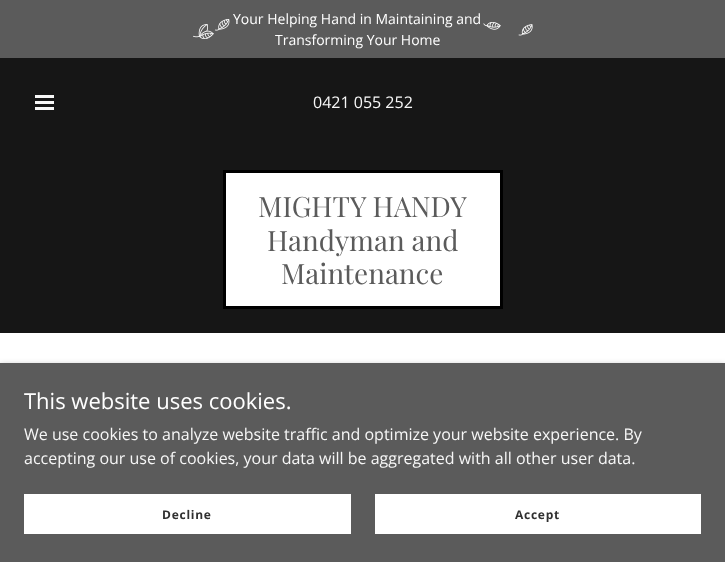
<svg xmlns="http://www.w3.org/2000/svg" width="725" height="562">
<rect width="100%" height="100%" fill="#161616"/>
<rect width="725" height="58" fill="#5b5b5b"/>
<image x="193" y="19" width="37" height="20" href="media/1.png"/>
<text x="233" y="24" style="font-family:Open Sans;font-size:14px;fill:#fff">Your Helping Hand in Maintaining and</text>
<text x="275" y="45" style="font-family:Open Sans;font-size:14px;fill:#fff">Transforming Your Home</text>
<image x="483" y="22" width="50" height="14" href="media/2.png"/>
<rect x="35" y="95" width="19" height="3" fill="#f7f7f7"/>
<rect x="35" y="101" width="19" height="3" fill="#f7f7f7"/>
<rect x="35" y="107" width="19" height="3" fill="#f7f7f7"/>
<text x="313" y="108" style="font-family:Open Sans;font-size:16px;fill:#f7f7f7">0421 055 252</text>
<rect x="224.5" y="171.5" width="277" height="136" fill="#fff" stroke="#000" stroke-width="3"/>
<text x="258" y="217" style="font-family:Playfair Display;font-size:28px;fill:#5b5b5b">MIGHTY HANDY</text>
<text x="267" y="251" style="font-family:Playfair Display;font-size:28px;fill:#5b5b5b">Handyman and</text>
<text x="281" y="284" style="font-family:Playfair Display;font-size:28px;fill:#5b5b5b">Maintenance</text>
<rect y="333" width="725" height="30" fill="#fff"/>
<rect y="365" width="725" height="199" fill="#0000004d" filter="blur(3px)"/>
<rect y="363" width="725" height="199" fill="#5b5b5b"/>
<text x="24" y="409" style="font-family:Open Sans;font-size:22px;fill:#fff">This website uses cookies.</text>
<text x="24" y="440" style="font-family:Open Sans;font-size:16px;fill:#f7f7f7">We use cookies to analyze website traffic and optimize your website experience. By</text>
<text x="24" y="464" style="font-family:Open Sans;font-size:16px;fill:#f7f7f7">accepting our use of cookies, your data will be aggregated with all other user data.</text>
<rect x="24" y="494" width="327" height="40" fill="#fff"/>
<text x="162" y="519" style="font-family:Open Sans;font-size:12px;font-weight:bold;letter-spacing:0.75px;fill:#303030">Decline</text>
<rect x="375" y="494" width="326" height="40" fill="#fff"/>
<text x="515" y="519" style="font-family:Open Sans;font-size:12px;font-weight:bold;letter-spacing:0.75px;fill:#303030">Accept</text>
</svg>
